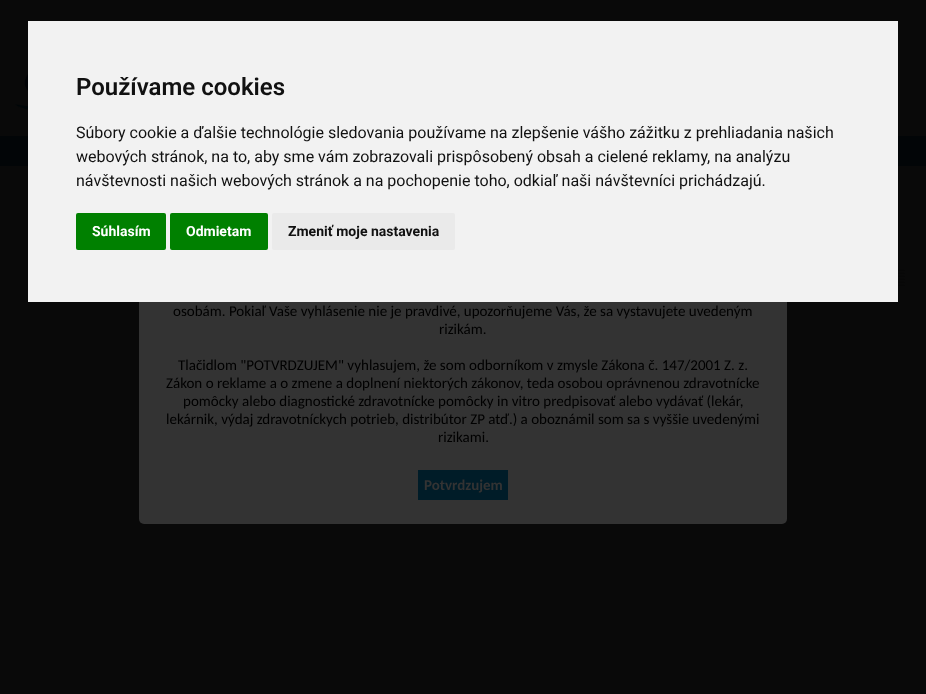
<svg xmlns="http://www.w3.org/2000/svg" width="926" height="694">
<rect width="100%" height="100%" fill="#090909"/>
<rect y="136" width="926" height="30" fill="#020507"/>
<rect x="139" y="170" width="648" height="354" rx="5" fill="#333"/>
<rect x="28" y="21" width="870" height="281" fill="#f2f2f2"/>
<text x="76" y="95" style="font-family:Roboto;font-size:24px;font-weight:600;fill:#111">Používame cookies</text>
<text x="76" y="138" style="font-family:Roboto;font-size:16px;fill:#111">Súbory cookie a ďalšie technológie sledovania používame na zlepšenie vášho zážitku z prehliadania našich</text>
<text x="76" y="162" style="font-family:Roboto;font-size:16px;fill:#111">webových stránok, na to, aby sme vám zobrazovali prispôsobený obsah a cielené reklamy, na analýzu</text>
<text x="76" y="186" style="font-family:Roboto;font-size:16px;fill:#111">návštevnosti našich webových stránok a na pochopenie toho, odkiaľ naši návštevníci prichádzajú.</text>
<rect x="76" y="213" width="90" height="37" rx="2" fill="#008000"/>
<text x="92" y="236" style="font-family:Roboto;font-size:14px;font-weight:bold;fill:#fff">Súhlasím</text>
<rect x="170" y="213" width="98" height="37" rx="2" fill="#008000"/>
<text x="186" y="236" style="font-family:Roboto;font-size:14px;font-weight:bold;fill:#fff">Odmietam</text>
<rect x="272" y="213" width="183" height="37" rx="2" fill="#eaeaea"/>
<text x="288" y="236" style="font-family:Roboto;font-size:14px;font-weight:bold;fill:#111">Zmeniť moje nastavenia</text>
<image x="15" y="74" width="13" height="36" href="media/1.png"/>
<image x="898" y="269" width="7" height="17" href="media/2.png"/>
<text x="173" y="316" style="font-family:Carlito;font-size:15px;fill:#000">osobám. Pokiaľ Vaše vyhlásenie nie je pravdivé, upozorňujeme Vás, že sa vystavujete uvedeným</text>
<text x="439" y="334" style="font-family:Carlito;font-size:15px;fill:#000">rizikám.</text>
<text x="178" y="370" style="font-family:Carlito;font-size:15px;fill:#000">Tlačidlom "POTVRDZUJEM" vyhlasujem, že som odborníkom v zmysle Zákona č. 147/2001 Z. z.</text>
<text x="166" y="388" style="font-family:Carlito;font-size:15px;fill:#000">Zákon o reklame a o zmene a doplnení niektorých zákonov, teda osobou oprávnenou zdravotnícke</text>
<text x="183" y="406" style="font-family:Carlito;font-size:15px;fill:#000">pomôcky alebo diagnostické zdravotnícke pomôcky in vitro predpisovať alebo vydávať (lekár,</text>
<text x="166" y="424" style="font-family:Carlito;font-size:15px;fill:#000">lekárnik, výdaj zdravotníckych potrieb, distribútor ZP atď.) a oboznámil som sa s vyššie uvedenými</text>
<text x="438" y="442" style="font-family:Carlito;font-size:15px;fill:#000">rizikami.</text>
<rect x="418" y="470" width="90" height="30" fill="#001c28"/>
<text x="424" y="490" style="font-family:Carlito;font-size:15px;font-weight:bold;fill:#333">Potvrdzujem</text>
</svg>
